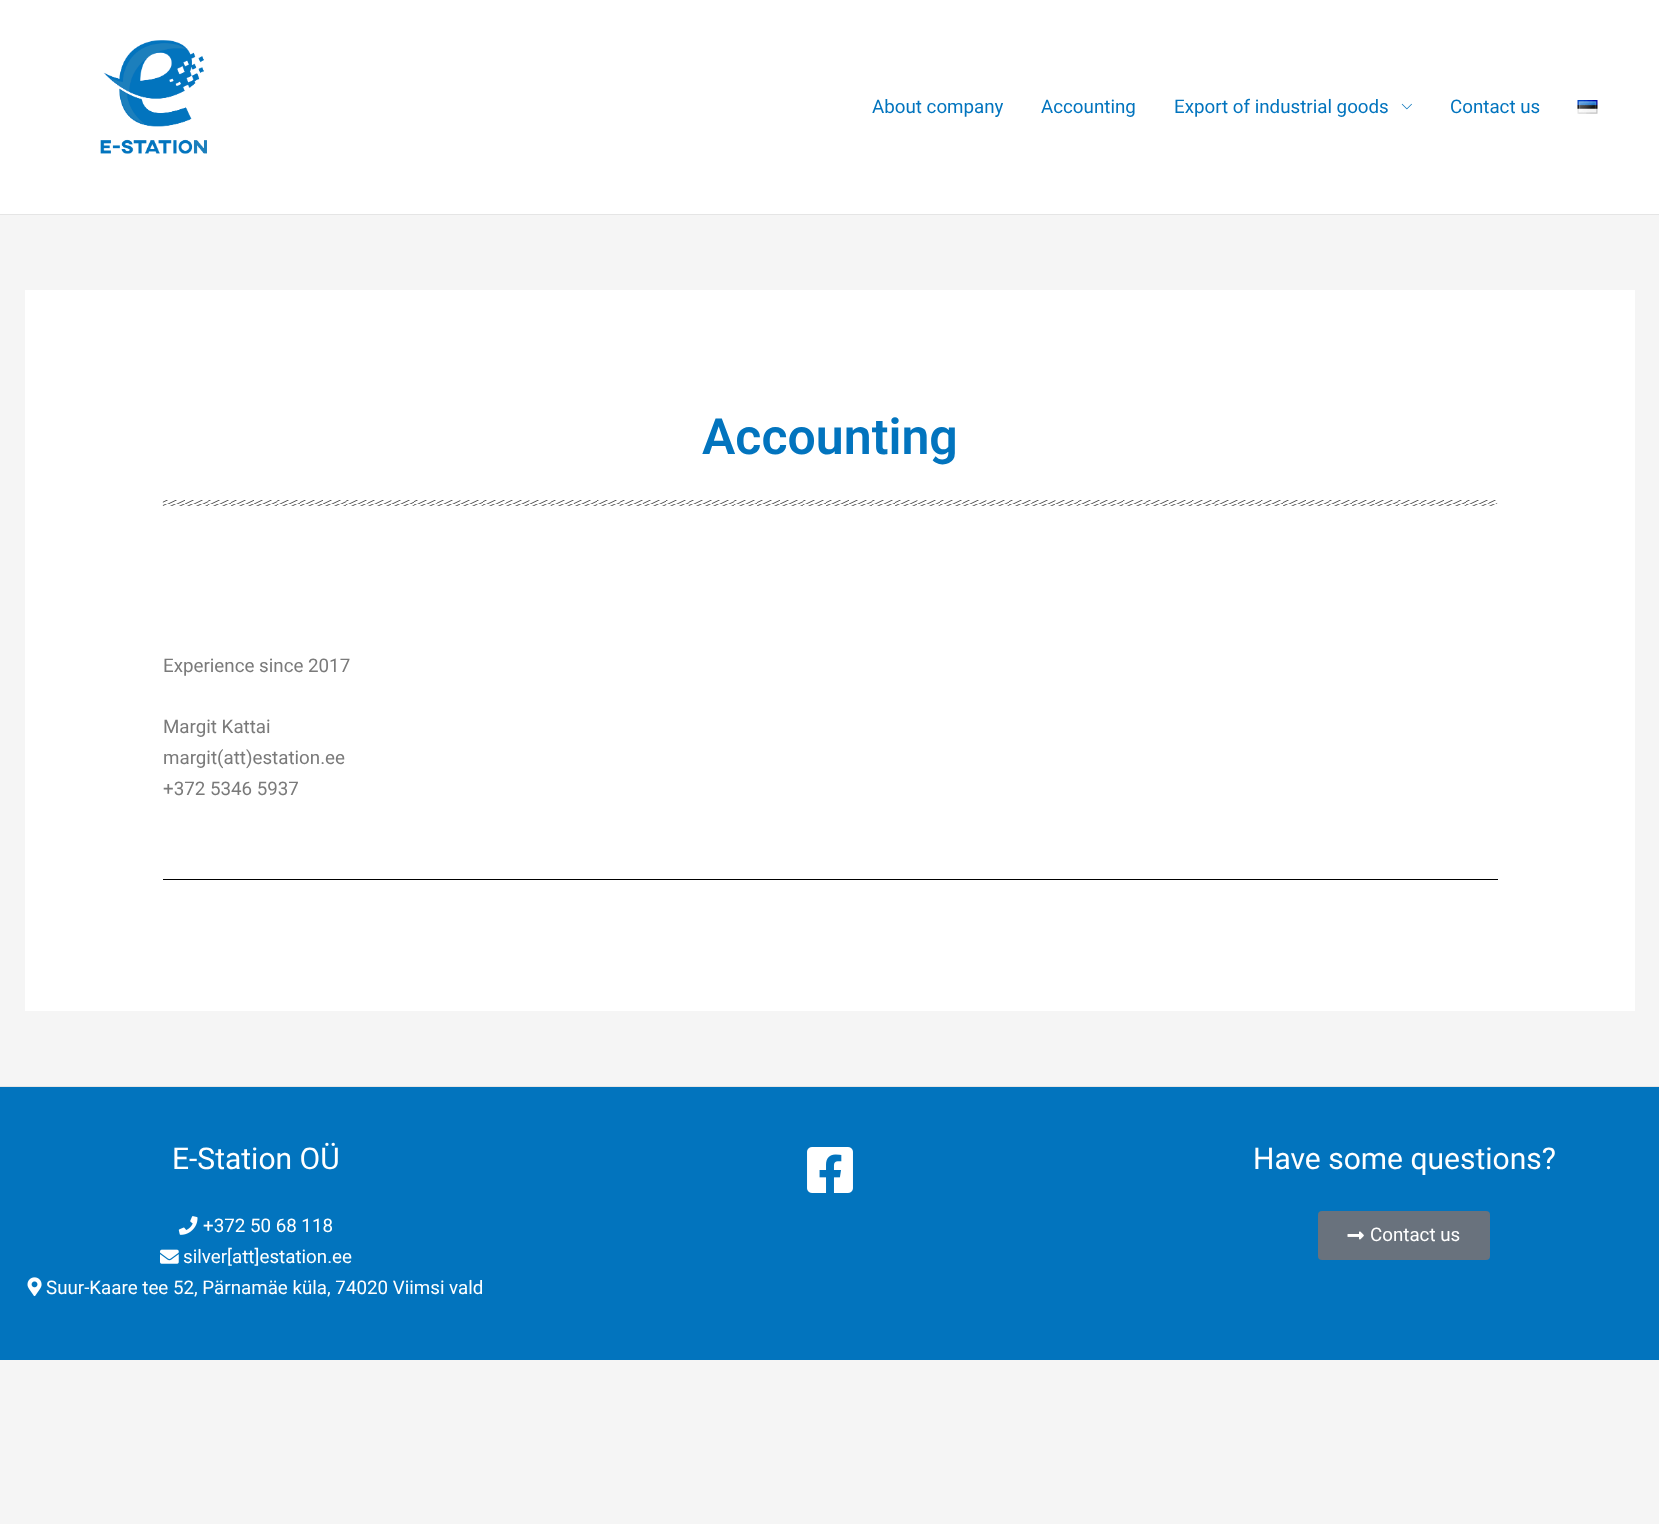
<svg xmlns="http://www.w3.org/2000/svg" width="1659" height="1524">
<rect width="100%" height="100%" fill="#f5f5f5"/>
<rect width="1659" height="214" fill="#fff"/>
<rect y="214" width="1659" height="1" fill="#e5e5e5"/>
<image x="100" y="40" width="107" height="114" href="media/1.png"/>
<text x="872" y="113" style="font-family:Roboto;font-size:18.75px;fill:#0274be">About company</text>
<text x="1041" y="113" style="font-family:Roboto;font-size:18.75px;fill:#0274be">Accounting</text>
<text x="1174" y="113" style="font-family:Roboto;font-size:18.75px;fill:#0274be">Export of industrial goods</text>
<image x="1401" y="103" width="11" height="7" href="media/2.png"/>
<text x="1450" y="113" style="font-family:Roboto;font-size:18.75px;fill:#0274be">Contact us</text>
<image x="1577" y="100" width="21" height="14" href="media/3.png"/>
<rect x="25" y="290" width="1610" height="721" fill="#fff"/>
<text x="702" y="454" style="font-family:Roboto;font-size:50px;font-weight:600;fill:#0274be">Accounting</text>
<image x="162" y="500" width="1336" height="6" href="media/4.png"/>
<text x="163" y="672" style="font-family:Roboto;font-size:18.75px;fill:#7a7a7a">Experience since 2017</text>
<text x="163" y="733" style="font-family:Roboto;font-size:18.75px;fill:#7a7a7a">Margit Kattai</text>
<text x="163" y="764" style="font-family:Roboto;font-size:18.75px;fill:#7a7a7a">margit(att)estation.ee</text>
<text x="163" y="795" style="font-family:Roboto;font-size:18.75px;fill:#7a7a7a">+372 5346 5937</text>
<rect x="163" y="879" width="1335" height="1" fill="#000"/>
<rect y="1087" width="1659" height="273" fill="#0274be"/>
<rect y="1086" width="1659" height="1" fill="#e5e5e5"/>
<text x="172" y="1169" style="font-family:Roboto;font-size:30px;fill:#fff">E-Station OÜ</text>
<image x="178" y="1216" width="20" height="19" href="media/5.png"/>
<text x="203" y="1232" style="font-family:Roboto;font-size:18.75px;fill:#fff">+372 50 68 118</text>
<image x="160" y="1249" width="19" height="15" href="media/6.png"/>
<text x="183" y="1263" style="font-family:Roboto;font-size:18.75px;fill:#fff">silver[att]estation.ee</text>
<image x="27" y="1277" width="15" height="20" href="media/7.png"/>
<text x="46" y="1294" style="font-family:Roboto;font-size:18.75px;fill:#fff">Suur-Kaare tee 52, Pärnamäe küla, 74020 Viimsi vald</text>
<image x="807" y="1147" width="46" height="46" href="media/8.png"/>
<text x="1253" y="1169" style="font-family:Roboto;font-size:30px;fill:#fff">Have some questions?</text>
<rect x="1318" y="1211" width="172" height="49" rx="4" fill="#69727d"/>
<image x="1347" y="1231" width="17" height="9" href="media/9.png"/>
<text x="1370" y="1241" style="font-family:Roboto;font-size:18.75px;fill:#fff">Contact us</text>
</svg>
